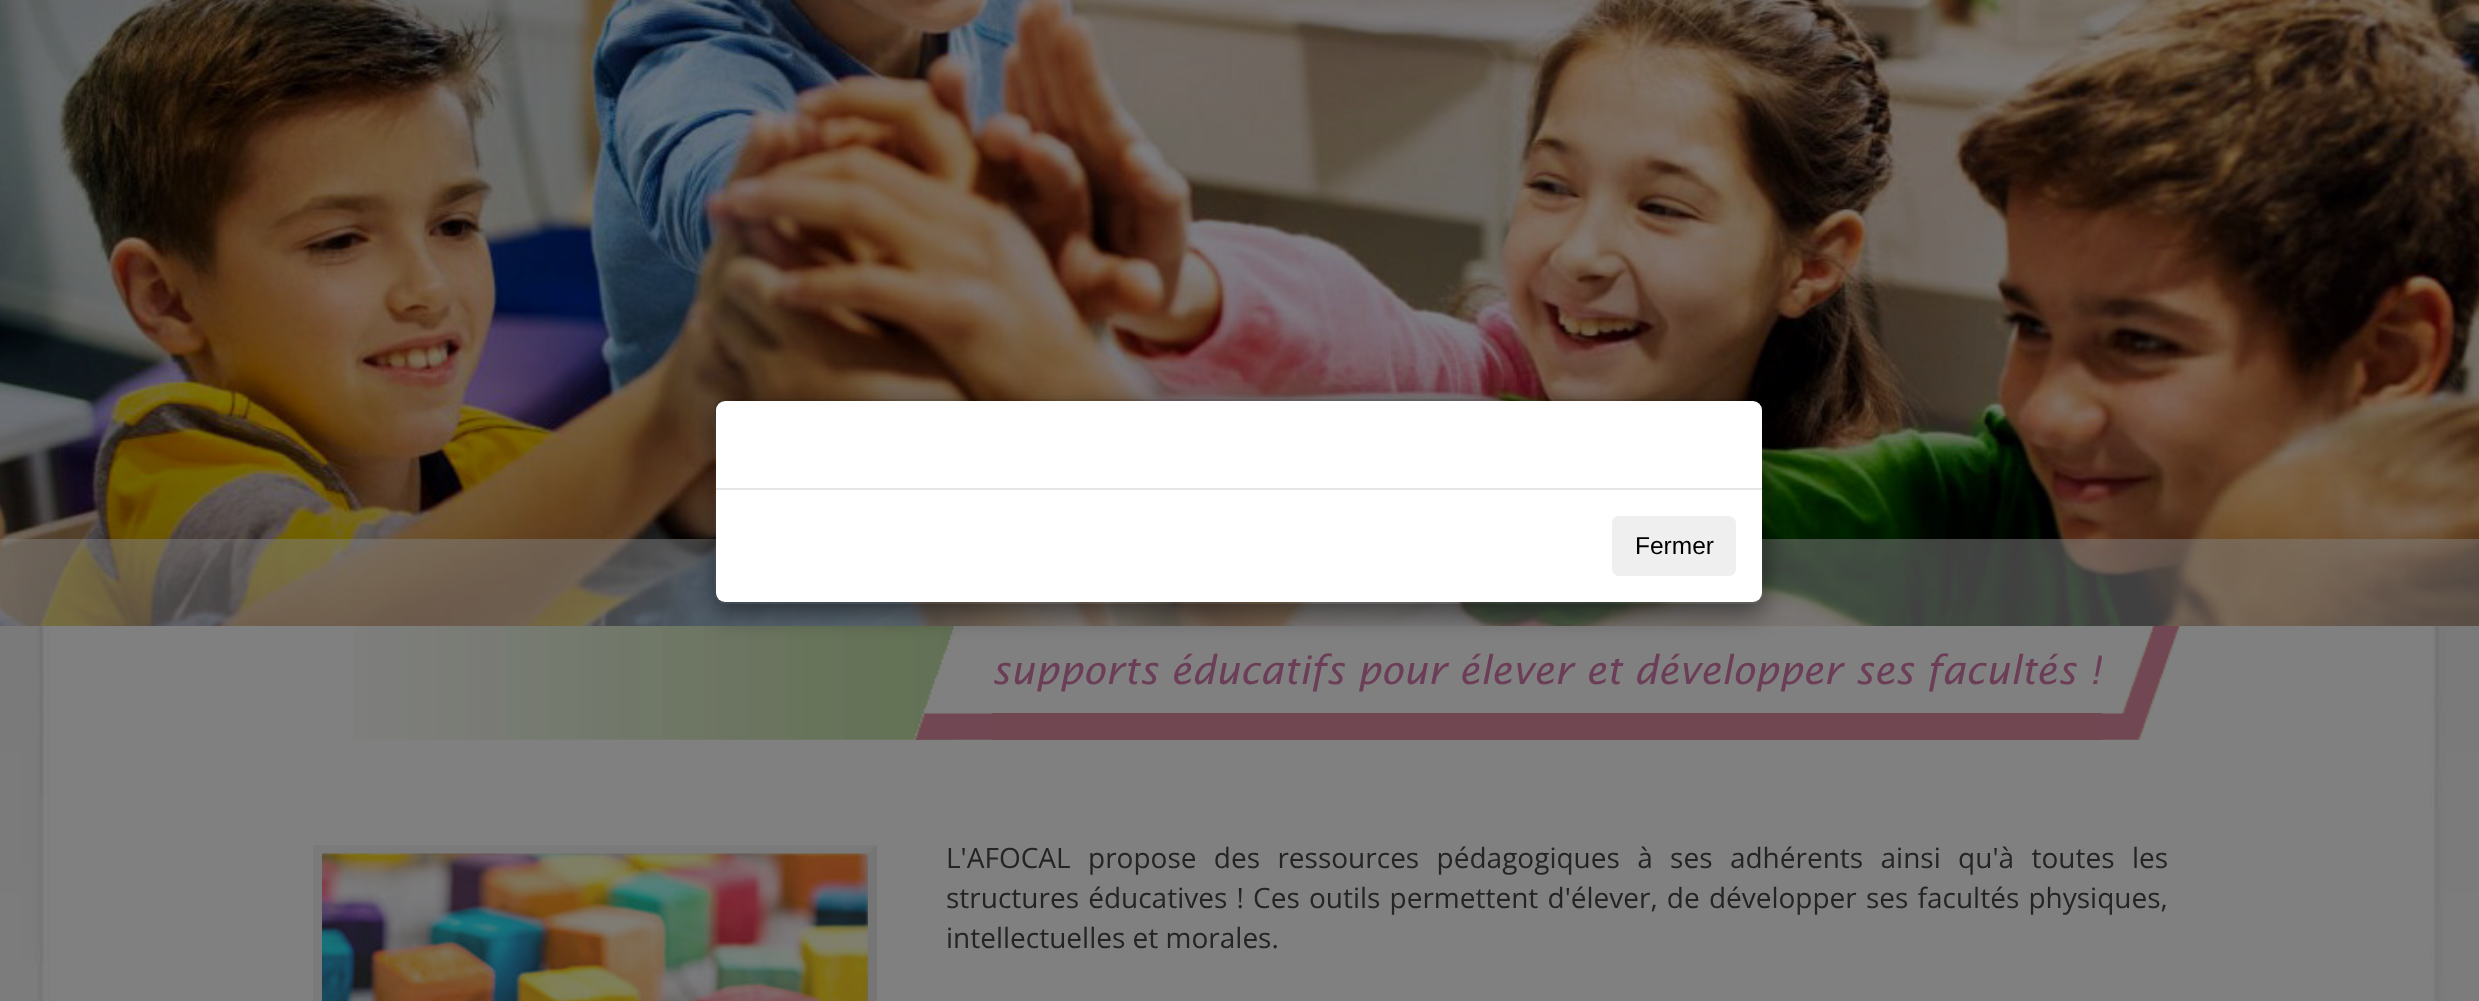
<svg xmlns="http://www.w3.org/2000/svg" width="2479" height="1001">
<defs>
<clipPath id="clip1"><path d="M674 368h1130v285h-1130zm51 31h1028c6 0 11 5 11 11v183c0 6-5 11-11 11h-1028c-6 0-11-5-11-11v-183c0-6 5-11 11-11z" clip-rule="evenodd"/></clipPath>
</defs>
<rect width="100%" height="100%" fill="#fff"/>
<image x="0" y="0" width="2479" height="626" href="media/1.png"/>
<rect y="539" width="2479" height="87" fill="#80808080"/>
<image x="0" y="626" width="2479" height="375" href="media/2.png"/>
<image x="353" y="626" width="601" height="114" href="media/3.png"/>
<rect x="992" y="713" width="1110" height="27" fill="#714752"/>
<image x="913" y="626" width="80" height="114" href="media/4.png"/>
<g clip-path="url(#clip1)">
<rect x="714" y="408" width="1050" height="205" rx="11" fill="#00000080" filter="blur(13px)"/>
</g>
<rect x="716" y="401" width="1046" height="201" rx="9" fill="#fff"/>
<rect x="715" y="400" width="1048" height="203" rx="10" fill="none" stroke="#00000033" stroke-width="2"/>
<rect x="716" y="488" width="1046" height="2" fill="#e5e5e5"/>
<rect x="1612" y="516" width="124" height="60" rx="7" fill="#efefef"/>
<text x="1635" y="554" style="font-family:Liberation Sans;font-size:24.5px;fill:#000">Fermer</text>
<text x="991" y="684" style="font-family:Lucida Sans;font-size:39.4px;font-style:italic;fill:#6b3d57">supports éducatifs pour élever et développer ses facultés !</text>
<image x="2101" y="626" width="80" height="114" href="media/5.png"/>
<path d="M313 845h564l-9 9h-546z" fill="#7a7a7a"/>
<path d="M877 845v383l-9-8v-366z" fill="#757575"/>
<path d="M313 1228v-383l9 9v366z" fill="#7a7a7a"/>
<image x="322" y="853" width="546" height="148" href="media/6.png"/>
<text x="946" y="868" word-spacing="10.1" style="font-family:Open Sans;font-size:28px;fill:#242424">L'AFOCAL propose des ressources pédagogiques à ses adhérents ainsi qu'à toutes les</text>
<text x="946" y="908" word-spacing="1.9" style="font-family:Open Sans;font-size:28px;fill:#242424">structures éducatives ! Ces outils permettent d'élever, de développer ses facultés physiques,</text>
<text x="946" y="948" style="font-family:Open Sans;font-size:28px;fill:#242424">intellectuelles et morales.</text>
</svg>
